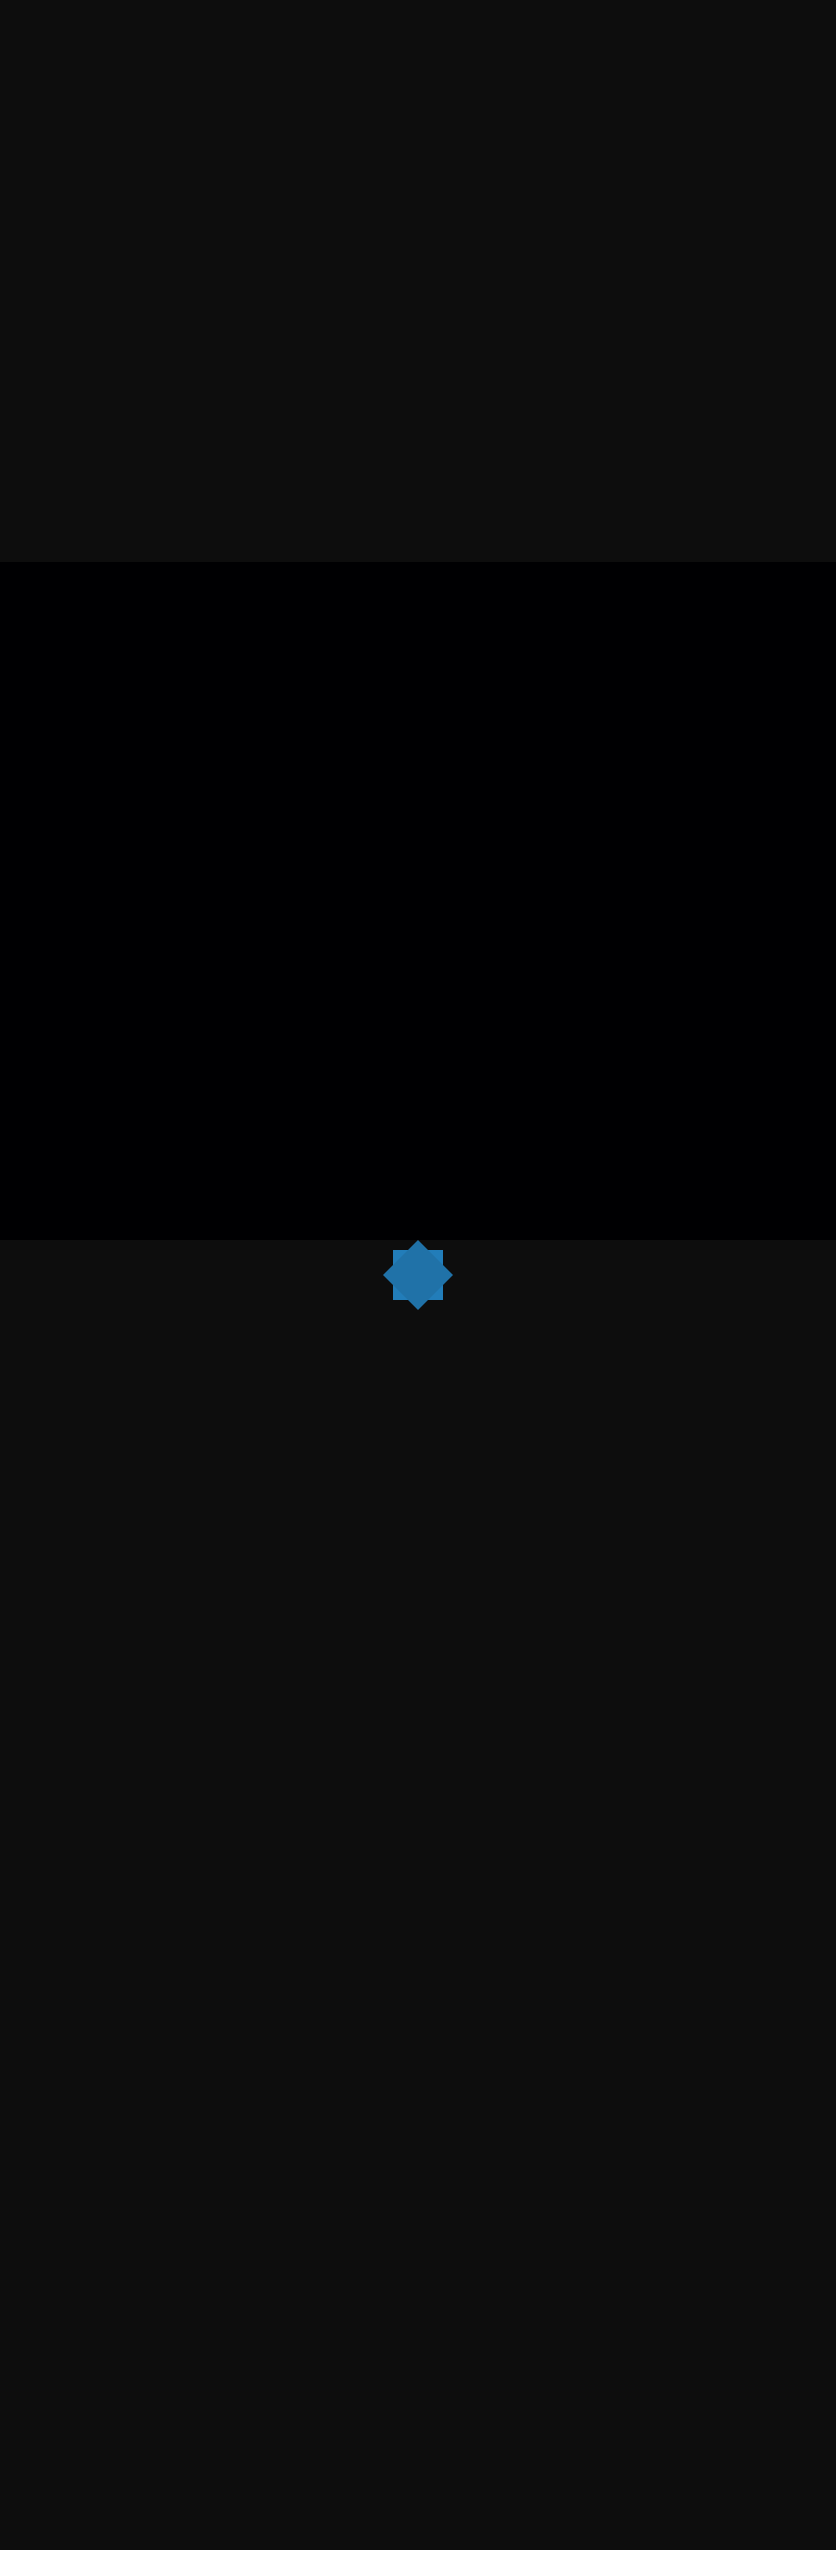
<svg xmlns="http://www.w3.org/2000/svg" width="836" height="2550">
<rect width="100%" height="100%" fill="#0d0d0d"/>
<rect y="562" width="836" height="678" fill="#000002"/>
<rect x="393" y="1250" width="50" height="50" fill="#227db9"/>
<path d="M418 1240l35 35l-35 35l-35-35z" fill="#2072a8"/>
</svg>
